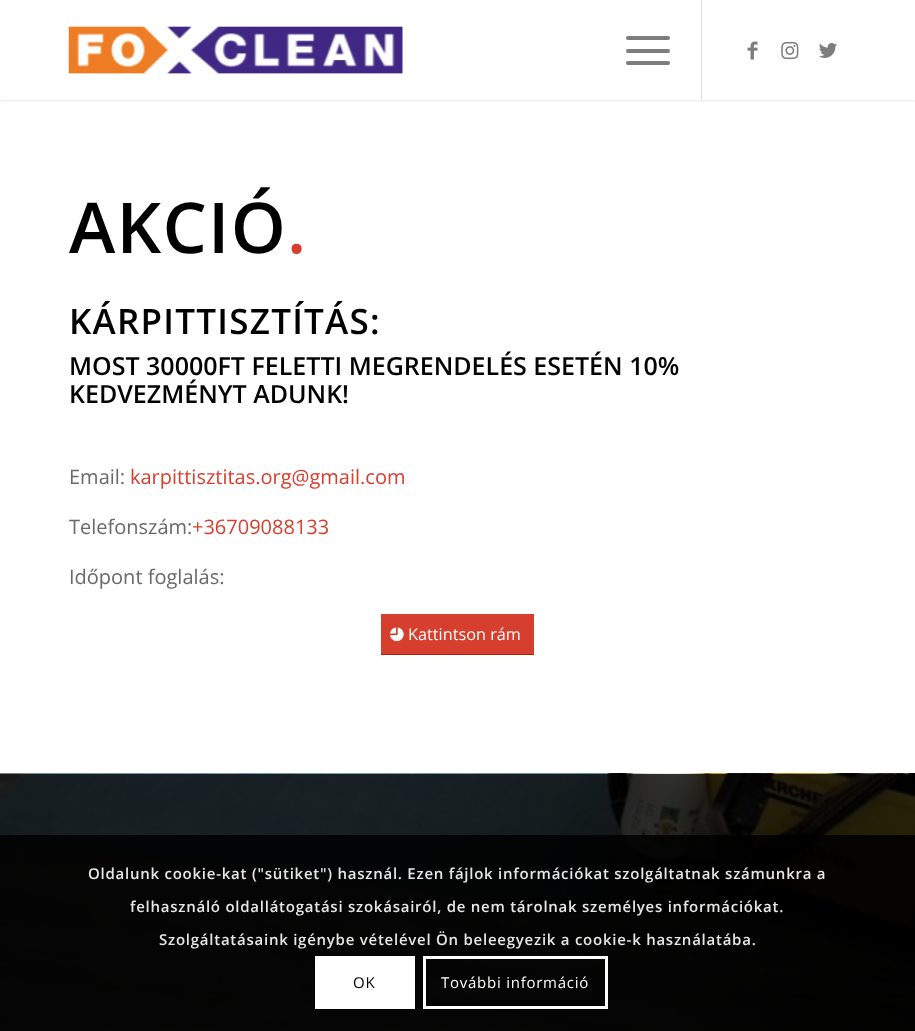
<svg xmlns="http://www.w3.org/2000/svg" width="915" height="1031">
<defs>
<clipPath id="clip1"><rect x="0" y="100" width="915" height="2"/></clipPath>
</defs>
<rect width="100%" height="100%" fill="#fff"/>
<g clip-path="url(#clip1)">
<rect x="-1" y="-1" width="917" height="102" fill="#0000001a" filter="blur(1px)"/>
</g>
<image x="68" y="26" width="335" height="48" href="media/1.png"/>
<rect x="701" width="1" height="100" fill="#e1e1e1"/>
<rect x="626" y="49" width="44" height="4" rx="2" fill="#7d7d7d"/>
<rect x="626" y="36" width="44" height="4" rx="2" fill="#7d7d7d"/>
<rect x="626" y="61" width="44" height="4" rx="2" fill="#7d7d7d"/>
<image x="747" y="41" width="11" height="19" href="media/2.png"/>
<image x="781" y="41" width="18" height="19" href="media/3.png"/>
<image x="819" y="43" width="18" height="15" href="media/4.png"/>
<text x="69" y="253" style="font-family:Open Sans;font-size:70px;font-weight:600;letter-spacing:1.25px;fill:#000">AKCIÓ</text>
<text x="287" y="253" style="font-family:Open Sans;font-size:70px;font-weight:600;letter-spacing:1.25px;fill:#d63e2d">.</text>
<text x="69" y="334" style="font-family:Open Sans;font-size:35px;font-weight:600;letter-spacing:1.25px;fill:#000">KÁRPITTISZTÍTÁS:</text>
<text x="69" y="375" style="font-family:Open Sans;font-size:25px;font-weight:600;fill:#000">MOST 30000FT FELETTI MEGRENDELÉS ESETÉN 10%</text>
<text x="69" y="403" style="font-family:Open Sans;font-size:25px;font-weight:600;fill:#000">KEDVEZMÉNYT ADUNK!</text>
<text x="69" y="484" style="font-family:Open Sans;font-size:20px;fill:#696969">Email:</text>
<text x="130" y="484" style="font-family:Open Sans;font-size:20px;fill:#d63e2d">karpittisztitas.org@gmail.com</text>
<text x="69" y="534" style="font-family:Open Sans;font-size:20px;fill:#696969">Telefonszám:</text>
<text x="192" y="534" style="font-family:Open Sans;font-size:20px;fill:#d63e2d">+36709088133</text>
<text x="69" y="584" style="font-family:Open Sans;font-size:20px;fill:#696969">Időpont foglalás:</text>
<rect x="381" y="614" width="153" height="40" fill="#d63e2d"/>
<rect x="381" y="654" width="153" height="1" fill="#b41c0b"/>
<image x="390" y="627" width="14" height="15" href="media/5.png"/>
<text x="408" y="640" style="font-family:Open Sans;font-size:16.25px;fill:#fff">Kattintson rám</text>
<image x="0" y="773" width="915" height="258" href="media/6.png"/>
<rect y="835" width="915" height="196" fill="#000000d9"/>
<text x="88" y="879" style="font-family:Open Sans;font-size:15px;font-weight:600;letter-spacing:0.75px;fill:#e6e6e6">Oldalunk cookie-kat ("sütiket") használ. Ezen fájlok információkat szolgáltatnak számunkra a</text>
<text x="130" y="912" style="font-family:Open Sans;font-size:15px;font-weight:600;letter-spacing:0.75px;fill:#e6e6e6">felhasználó oldallátogatási szokásairól, de nem tárolnak személyes információkat.</text>
<text x="159" y="945" style="font-family:Open Sans;font-size:15px;font-weight:600;letter-spacing:0.75px;fill:#e6e6e6">Szolgáltatásaink igénybe vételével Ön beleegyezik a cookie-k használatába.</text>
<rect x="315" y="956" width="100" height="53" fill="#fff"/>
<text x="353" y="988" style="font-family:Open Sans;font-size:15px;letter-spacing:0.75px;fill:#000">OK</text>
<rect x="424.5" y="957.5" width="182" height="50" fill="none" stroke="#fff" stroke-width="3"/>
<text x="441" y="988" style="font-family:Open Sans;font-size:15px;letter-spacing:0.75px;fill:#fff">További információ</text>
</svg>
